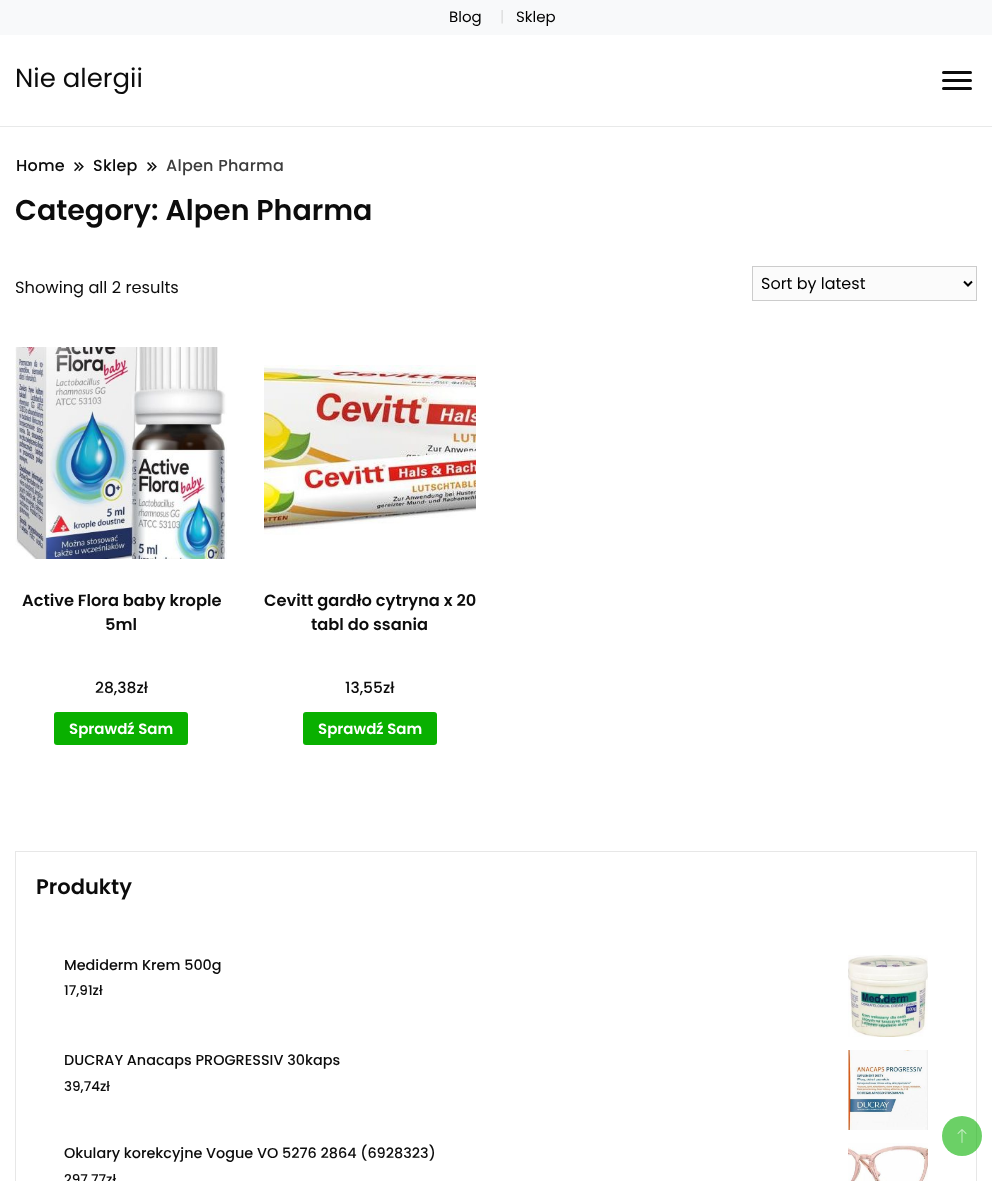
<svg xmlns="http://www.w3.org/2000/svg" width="992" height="1181">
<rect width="100%" height="100%" fill="#fff"/>
<rect y="126" width="992" height="1" fill="#e8e9e9"/>
<rect width="992" height="35" fill="#f8f9fa"/>
<text x="449" y="22" style="font-family:Poppins;font-size:15px;fill:#000">Blog</text>
<text x="500" y="22" style="font-family:Poppins;font-size:15px;fill:#ddd">|</text>
<text x="516" y="22" style="font-family:Poppins;font-size:15px;fill:#000">Sklep</text>
<text x="15" y="87" style="font-family:Poppins;font-size:26px;fill:#0c0c0c">Nie alergii</text>
<rect x="942" y="71" width="30" height="3" rx="1.5" fill="#0c0c0c"/>
<rect x="942" y="79" width="30" height="3" rx="1.5" fill="#0c0c0c"/>
<rect x="942" y="87" width="30" height="3" rx="1.5" fill="#0c0c0c"/>
<text x="16" y="171" style="font-family:Poppins;font-size:16px;font-weight:500;letter-spacing:0.25px;fill:#0c0c0c">Home</text>
<image x="74" y="162" width="10" height="10" href="media/1.png"/>
<text x="93" y="171" style="font-family:Poppins;font-size:16px;font-weight:500;letter-spacing:0.25px;fill:#0c0c0c">Sklep</text>
<image x="147" y="162" width="10" height="10" href="media/1.png"/>
<text x="166" y="171" style="font-family:Poppins;font-size:16px;font-weight:500;letter-spacing:0.25px;fill:#3d3d3d">Alpen Pharma</text>
<text x="15" y="220" style="font-family:Poppins;font-size:28.5px;font-weight:600;fill:#0c0c0c">Category: Alpen Pharma</text>
<text x="15" y="293" style="font-family:Poppins;font-size:16.25px;fill:#0c0c0c">Showing all 2 results</text>
<rect x="752.5" y="266.5" width="224" height="34" fill="#fbfbfb" stroke="#ccc"/>
<path d="M964 281.5l4 4l4-4" fill="none" stroke="#000" stroke-width="2"/>
<text x="761" y="289" style="font-family:Poppins;font-size:16px;fill:#000">Sort by latest</text>
<image x="15" y="347" width="212" height="212" href="media/2.png"/>
<text x="22" y="606" style="font-family:Poppins;font-size:16.25px;font-weight:600;fill:#0c0c0c">Active Flora baby krople</text>
<text x="105" y="630" style="font-family:Poppins;font-size:16.25px;font-weight:600;fill:#0c0c0c">5ml</text>
<text x="95" y="693" style="font-family:Poppins;font-size:15.5px;font-weight:500;fill:#0c0c0c">28,38zł</text>
<rect x="54" y="712" width="134" height="33" rx="3" fill="#09b000"/>
<text x="69" y="734" style="font-family:Poppins;font-size:15px;font-weight:600;fill:#fff">Sprawdź Sam</text>
<image x="264" y="365" width="212" height="170" href="media/3.png"/>
<text x="264" y="606" style="font-family:Poppins;font-size:16.25px;font-weight:600;fill:#0c0c0c">Cevitt gardło cytryna x 20</text>
<text x="311" y="630" style="font-family:Poppins;font-size:16.25px;font-weight:600;fill:#0c0c0c">tabl do ssania</text>
<text x="345" y="693" style="font-family:Poppins;font-size:15.5px;font-weight:500;fill:#0c0c0c">13,55zł</text>
<rect x="303" y="712" width="134" height="33" rx="3" fill="#09b000"/>
<text x="318" y="734" style="font-family:Poppins;font-size:15px;font-weight:600;fill:#fff">Sprawdź Sam</text>
<rect x="15.5" y="851.5" width="961" height="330" fill="none" stroke="#e7e7e7"/>
<text x="36" y="894" style="font-family:Poppins;font-size:21px;font-weight:600;fill:#0c0c0c">Produkty</text>
<text x="64" y="970" style="font-family:Poppins;font-size:14.4px;font-weight:500;fill:#0c0c0c">Mediderm Krem 500g</text>
<image x="848" y="955" width="80" height="82" href="media/4.png"/>
<text x="64" y="995" style="font-family:Poppins;font-size:13.5px;font-weight:500;fill:#0c0c0c">17,91zł</text>
<text x="64" y="1065" style="font-family:Poppins;font-size:14.4px;font-weight:500;fill:#0c0c0c">DUCRAY Anacaps PROGRESSIV 30kaps</text>
<image x="848" y="1050" width="80" height="80" href="media/5.png"/>
<text x="64" y="1091" style="font-family:Poppins;font-size:13.5px;font-weight:500;fill:#0c0c0c">39,74zł</text>
<text x="64" y="1158" style="font-family:Poppins;font-size:14.4px;font-weight:500;fill:#0c0c0c">Okulary korekcyjne Vogue VO 5276 2864 (6928323)</text>
<image x="848" y="1143" width="80" height="38" href="media/6.png"/>
<text x="64" y="1184" style="font-family:Poppins;font-size:13.5px;font-weight:500;fill:#0c0c0c">297,77zł</text>
<circle cx="962" cy="1136" r="20" fill="#09b00099"/>
<image x="957" y="1129" width="10" height="14" href="media/7.png"/>
</svg>
